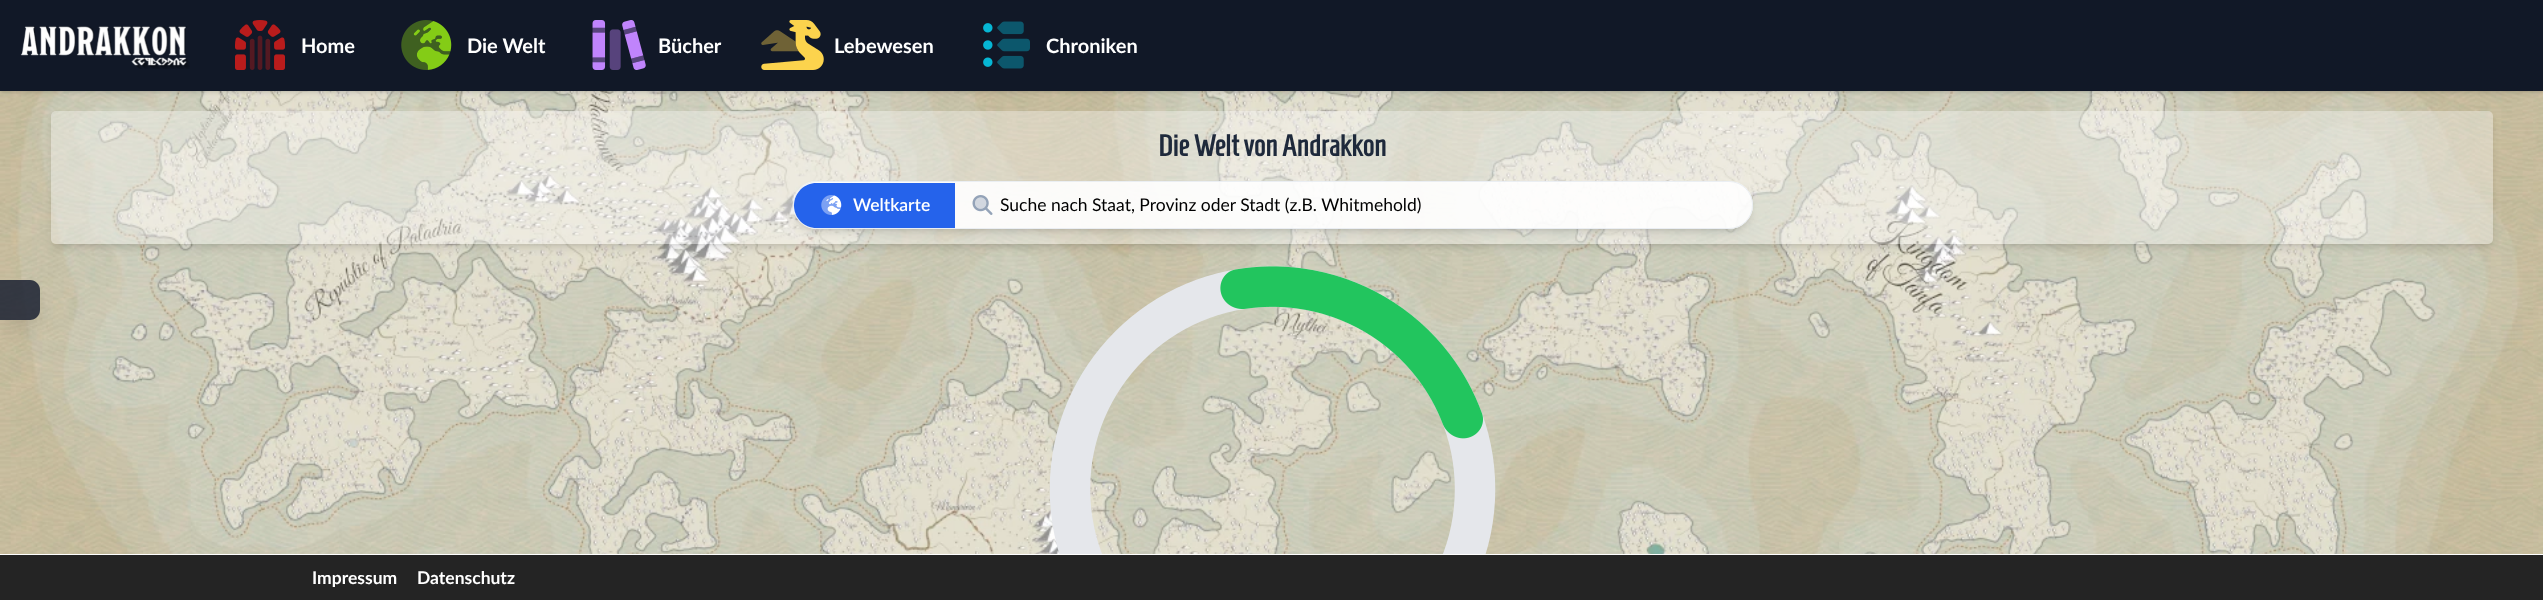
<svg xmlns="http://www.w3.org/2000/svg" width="2543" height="600">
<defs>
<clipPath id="clip1"><path d="M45 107h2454v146h-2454zm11 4h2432c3 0 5 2 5 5v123c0 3-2 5-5 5h-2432c-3 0-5-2-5-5v-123c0-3 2-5 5-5z" clip-rule="evenodd"/></clipPath>
<clipPath id="clip2"><path d="M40 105h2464v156h-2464zm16 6h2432c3 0 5 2 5 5v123c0 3-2 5-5 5h-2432c-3 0-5-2-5-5v-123c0-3 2-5 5-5z" clip-rule="evenodd"/></clipPath>
<clipPath id="clip3"><path d="M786 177h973v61h-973zm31 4h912c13.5 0 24 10.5 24 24c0 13.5-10.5 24-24 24h-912c-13.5 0-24-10.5-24-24c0-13.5 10.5-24 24-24z" clip-rule="evenodd"/></clipPath>
<clipPath id="clip4"><path d="M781 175h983v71h-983zm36 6h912c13.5 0 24 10.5 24 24c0 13.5-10.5 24-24 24h-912c-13.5 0-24-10.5-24-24c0-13.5 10.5-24 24-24z" clip-rule="evenodd"/></clipPath>
<clipPath id="clip5"><path d="M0 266h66v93h-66zm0 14h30c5.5 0 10 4.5 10 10v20c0 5.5-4.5 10-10 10h-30z" clip-rule="evenodd"/></clipPath>
</defs>
<rect width="100%" height="100%" fill="#fff"/>
<image x="0" y="91" width="2543" height="463" href="media/1.png"/>
<rect x="1" y="3" width="2542" height="88" fill="#0000001a" filter="blur(1px)"/>
<rect y="1" width="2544" height="92" fill="#0000001a" filter="blur(2px)"/>
<rect width="2543" height="91" fill="#111827"/>
<image x="20" y="26" width="170" height="43" href="media/2.png"/>
<image x="235" y="20" width="50" height="50" href="media/3.png"/>
<text x="301" y="53" style="font-family:Lato;font-size:20px;font-weight:bold;fill:#fff">Home</text>
<image x="401" y="20" width="51" height="50" href="media/4.png"/>
<text x="467" y="53" style="font-family:Lato;font-size:20px;font-weight:bold;fill:#fff">Die Welt</text>
<image x="592" y="20" width="54" height="50" href="media/5.png"/>
<text x="658" y="53" style="font-family:Lato;font-size:20px;font-weight:bold;fill:#fff">Bücher</text>
<image x="761" y="20" width="63" height="50" href="media/6.png"/>
<text x="834" y="53" style="font-family:Lato;font-size:20px;font-weight:bold;fill:#fff">Lebewesen</text>
<image x="983" y="21" width="47" height="48" href="media/7.png"/>
<text x="1046" y="53" style="font-family:Lato;font-size:20px;font-weight:bold;fill:#fff">Chroniken</text>
<g clip-path="url(#clip1)">
<rect x="54" y="116" width="2436" height="128" rx="2.5" fill="#0000001a" filter="blur(2.5px)"/>
</g>
<g clip-path="url(#clip2)">
<rect x="53" y="118" width="2438" height="130" rx="4" fill="#0000001a" filter="blur(4px)"/>
</g>
<rect x="51" y="111" width="2442" height="133" rx="5" fill="#ffffff59"/>
<text x="1158" y="156" style="font-family:Homenaje;font-size:30px;font-weight:bold;fill:#1e293b">Die Welt von Andrakkon</text>
<g clip-path="url(#clip3)">
<rect x="795" y="186" width="955" height="43" rx="21.5" fill="#0000001a" filter="blur(2.5px)"/>
</g>
<g clip-path="url(#clip4)">
<rect x="794" y="188" width="957" height="45" rx="22.5" fill="#0000001a" filter="blur(4px)"/>
</g>
<rect x="793" y="181" width="960" height="48" rx="24" fill="#ffffffe6"/>
<rect x="793.5" y="181.5" width="959" height="47" rx="23.5" fill="none" stroke="#e2e8f0b3"/>
<path d="M816.5 183h138.5v45h-138.5c-12.5 0-22.5-10-22.5-22.5c0-12.5 10-22.5 22.5-22.5z" fill="#2563eb"/>
<image x="821" y="195" width="21" height="20" href="media/8.png"/>
<text x="853" y="211" style="font-family:Lato;font-size:17.5px;font-weight:600;fill:#fff">Weltkarte</text>
<image x="972" y="195" width="21" height="20" href="media/9.png"/>
<text x="1000" y="211" style="font-family:Lato;font-size:17.5px;fill:#000">Suche nach Staat, Provinz oder Stadt (z.B. Whitmehold)</text>
<g clip-path="url(#clip5)">
<rect x="4" y="296" width="32" height="33" rx="6" fill="#0000001a" filter="blur(9.5px)"/>
</g>
<path d="M0 280h30c5.5 0 10 4.5 10 10v20c0 5.5-4.5 10-10 10h-30z" fill="#0f172acc"/>
<image x="1049" y="266" width="447" height="288" href="media/10.png"/>
<rect y="555" width="2543" height="45" fill="#242424"/>
<text x="312" y="584" style="font-family:Lato;font-size:17.5px;font-weight:bold;fill:#fff">Impressum</text>
<text x="417" y="584" style="font-family:Lato;font-size:17.5px;font-weight:bold;fill:#fff">Datenschutz</text>
</svg>
